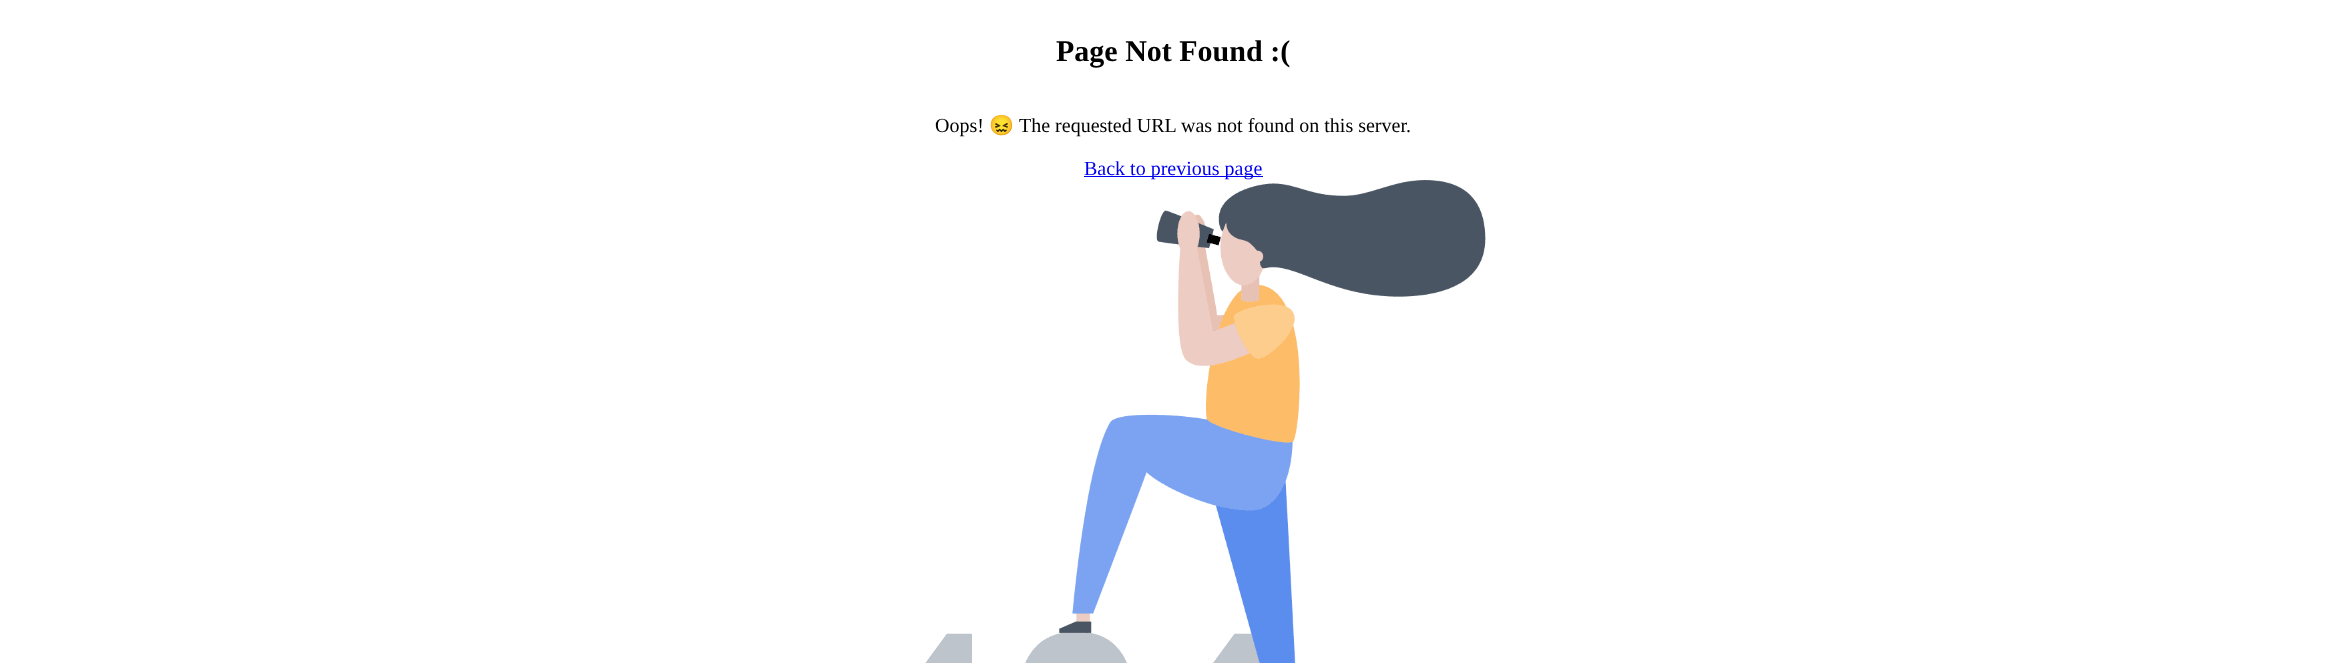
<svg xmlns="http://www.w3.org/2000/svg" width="2346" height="663">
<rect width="100%" height="100%" fill="#fff"/>
<text x="1056" y="61" style="font-family:Liberation Serif;font-size:30px;font-weight:bold;fill:#000">Page Not Found :(</text>
<text x="935" y="132" style="font-family:Liberation Serif;font-size:20px;fill:#000">Oops!</text>
<text x="989" y="132" style="font-family:Noto Color Emoji;font-size:20px;fill:#000">😖</text>
<text x="1019" y="132" style="font-family:Liberation Serif;font-size:20px;fill:#000">The requested URL was not found on this server.</text>
<rect x="1084" y="176" width="179" height="1" fill="#00e"/>
<text x="1084" y="175" style="font-family:Liberation Serif;font-size:20px;fill:#00e">Back to previous page</text>
<image x="925" y="180" width="561" height="483" href="media/1.png"/>
</svg>
